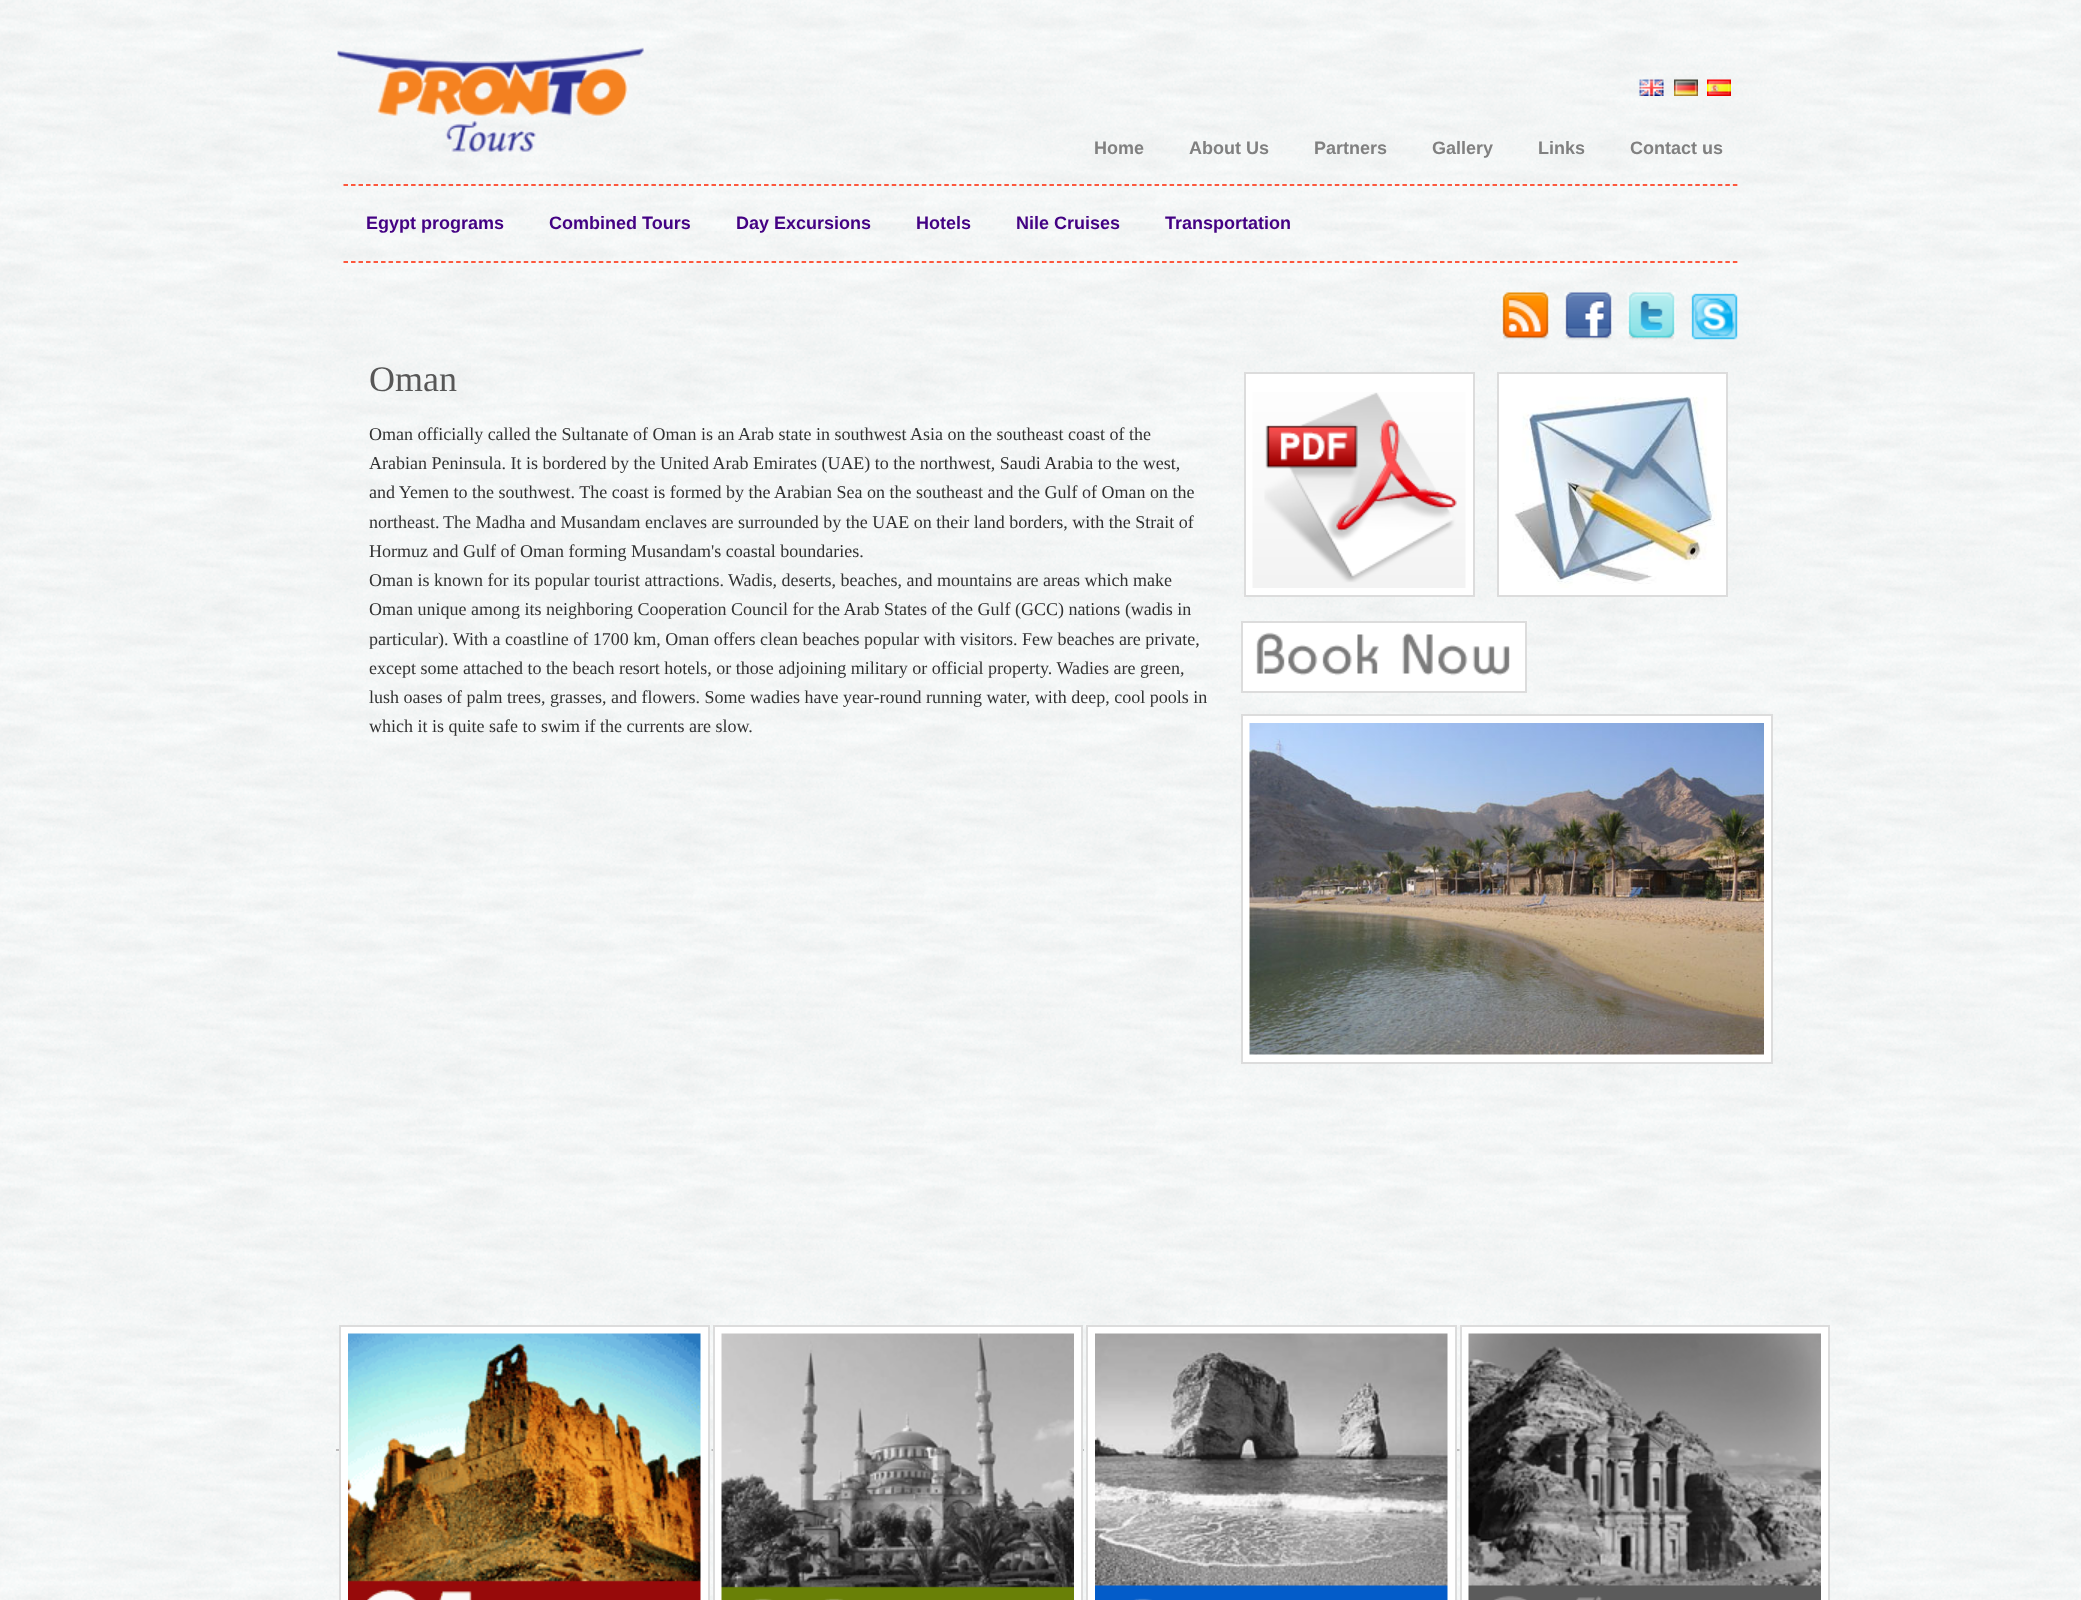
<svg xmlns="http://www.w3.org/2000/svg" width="2081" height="1600">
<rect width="100%" height="100%" fill="#fff"/>
<image x="0" y="0" width="2081" height="1600" href="media/1.png"/>
<image x="337" y="47" width="307" height="105" href="media/2.png"/>
<image x="1639" y="79" width="25" height="17" href="media/3.png"/>
<image x="1674" y="79" width="24" height="17" href="media/4.png"/>
<image x="1707" y="79" width="24" height="17" href="media/5.png"/>
<text x="1094" y="154" style="font-family:Liberation Sans;font-size:18px;font-weight:bold;fill:#808080">Home</text>
<text x="1189" y="154" style="font-family:Liberation Sans;font-size:18px;font-weight:bold;fill:#808080">About Us</text>
<text x="1314" y="154" style="font-family:Liberation Sans;font-size:18px;font-weight:bold;fill:#808080">Partners</text>
<text x="1432" y="154" style="font-family:Liberation Sans;font-size:18px;font-weight:bold;fill:#808080">Gallery</text>
<text x="1538" y="154" style="font-family:Liberation Sans;font-size:18px;font-weight:bold;fill:#808080">Links</text>
<text x="1630" y="154" style="font-family:Liberation Sans;font-size:18px;font-weight:bold;fill:#808080">Contact us</text>
<path d="M343.5 185h1395" fill="none" stroke="#ff2400" stroke-width="1.5" stroke-dasharray="4.5 3.01"/>
<path d="M343.5 262h1395" fill="none" stroke="#ff2400" stroke-width="1.5" stroke-dasharray="4.5 3.01"/>
<text x="366" y="229" style="font-family:Liberation Sans;font-size:18px;font-weight:bold;fill:#430183">Egypt programs</text>
<text x="549" y="229" style="font-family:Liberation Sans;font-size:18px;font-weight:bold;fill:#430183">Combined Tours</text>
<text x="736" y="229" style="font-family:Liberation Sans;font-size:18px;font-weight:bold;fill:#430183">Day Excursions</text>
<text x="916" y="229" style="font-family:Liberation Sans;font-size:18px;font-weight:bold;fill:#430183">Hotels</text>
<text x="1016" y="229" style="font-family:Liberation Sans;font-size:18px;font-weight:bold;fill:#430183">Nile Cruises</text>
<text x="1165" y="229" style="font-family:Liberation Sans;font-size:18px;font-weight:bold;fill:#430183">Transportation</text>
<path d="M336 1450h1410" fill="none" stroke="#a9a9a9" stroke-width="1.5" stroke-dasharray="4.5 3.01"/>
<image x="1501" y="292" width="49" height="49" href="media/6.png"/>
<image x="1564" y="292" width="49" height="49" href="media/7.png"/>
<image x="1627" y="292" width="49" height="49" href="media/8.png"/>
<image x="1691" y="293" width="47" height="47" href="media/9.png"/>
<text x="369" y="391" style="font-family:Liberation Serif;font-size:36px;fill:#575757">Oman</text>
<text x="369" y="440" style="font-family:Liberation Serif;font-size:18px;fill:#323232">Oman officially called the Sultanate of Oman is an Arab state in southwest Asia on the southeast coast of the</text>
<text x="369" y="469" style="font-family:Liberation Serif;font-size:18px;fill:#323232">Arabian Peninsula. It is bordered by the United Arab Emirates (UAE) to the northwest, Saudi Arabia to the west,</text>
<text x="369" y="498" style="font-family:Liberation Serif;font-size:18px;fill:#323232">and Yemen to the southwest. The coast is formed by the Arabian Sea on the southeast and the Gulf of Oman on the</text>
<text x="369" y="528" style="font-family:Liberation Serif;font-size:18px;fill:#323232">northeast.</text>
<text x="443" y="528" style="font-family:Liberation Serif;font-size:18px;fill:#323232">The Madha and Musandam enclaves are surrounded by the UAE on their land borders, with the Strait of</text>
<text x="369" y="557" style="font-family:Liberation Serif;font-size:18px;fill:#323232">Hormuz and Gulf of Oman forming Musandam's coastal boundaries.</text>
<text x="369" y="586" style="font-family:Liberation Serif;font-size:18px;fill:#323232">Oman is known for its popular tourist attractions.</text>
<text x="728" y="586" style="font-family:Liberation Serif;font-size:18px;fill:#323232">Wadis, deserts, beaches, and mountains are areas which make</text>
<text x="369" y="615" style="font-family:Liberation Serif;font-size:18px;fill:#323232">Oman unique among its neighboring Cooperation Council for the Arab States of the Gulf (GCC) nations (wadis in</text>
<text x="369" y="645" style="font-family:Liberation Serif;font-size:18px;fill:#323232">particular). With a coastline of 1700 km, Oman offers clean beaches popular with visitors. Few beaches are private,</text>
<text x="369" y="674" style="font-family:Liberation Serif;font-size:18px;fill:#323232">except some attached to the beach resort hotels, or those adjoining military or official property. Wadies are green,</text>
<text x="369" y="703" style="font-family:Liberation Serif;font-size:18px;fill:#323232">lush oases of palm trees, grasses, and flowers. Some wadies have year-round running water, with deep, cool pools in</text>
<text x="369" y="732" style="font-family:Liberation Serif;font-size:18px;fill:#323232">which it is quite safe to swim if the currents are slow.</text>
<rect x="1245" y="373" width="229" height="223" fill="#fff" stroke="#dcdcdc" stroke-width="2"/>
<image x="1252" y="392" width="214" height="196" href="media/10.png"/>
<rect x="1498" y="373" width="229" height="223" fill="#fff" stroke="#dcdcdc" stroke-width="2"/>
<image x="1514" y="396" width="203" height="192" href="media/11.png"/>
<rect x="1242" y="622" width="284" height="70" fill="#fff" stroke="#dcdcdc" stroke-width="2"/>
<image x="1256" y="632" width="254" height="44" href="media/12.png"/>
<rect x="1242" y="715" width="530" height="348" fill="#fff" stroke="#dcdcdc" stroke-width="2"/>
<image x="1249" y="723" width="515" height="332" href="media/13.png"/>
<rect x="340" y="1326" width="369" height="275" fill="#fff" stroke="#dcdcdc" stroke-width="2"/>
<image x="348" y="1333" width="353" height="267" href="media/14.png"/>
<rect x="714" y="1326" width="368" height="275" fill="#fff" stroke="#dcdcdc" stroke-width="2"/>
<image x="721" y="1333" width="353" height="267" href="media/15.png"/>
<rect x="1087" y="1326" width="369" height="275" fill="#fff" stroke="#dcdcdc" stroke-width="2"/>
<image x="1095" y="1333" width="353" height="267" href="media/16.png"/>
<rect x="1461" y="1326" width="368" height="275" fill="#fff" stroke="#dcdcdc" stroke-width="2"/>
<image x="1468" y="1333" width="353" height="267" href="media/17.png"/>
</svg>
